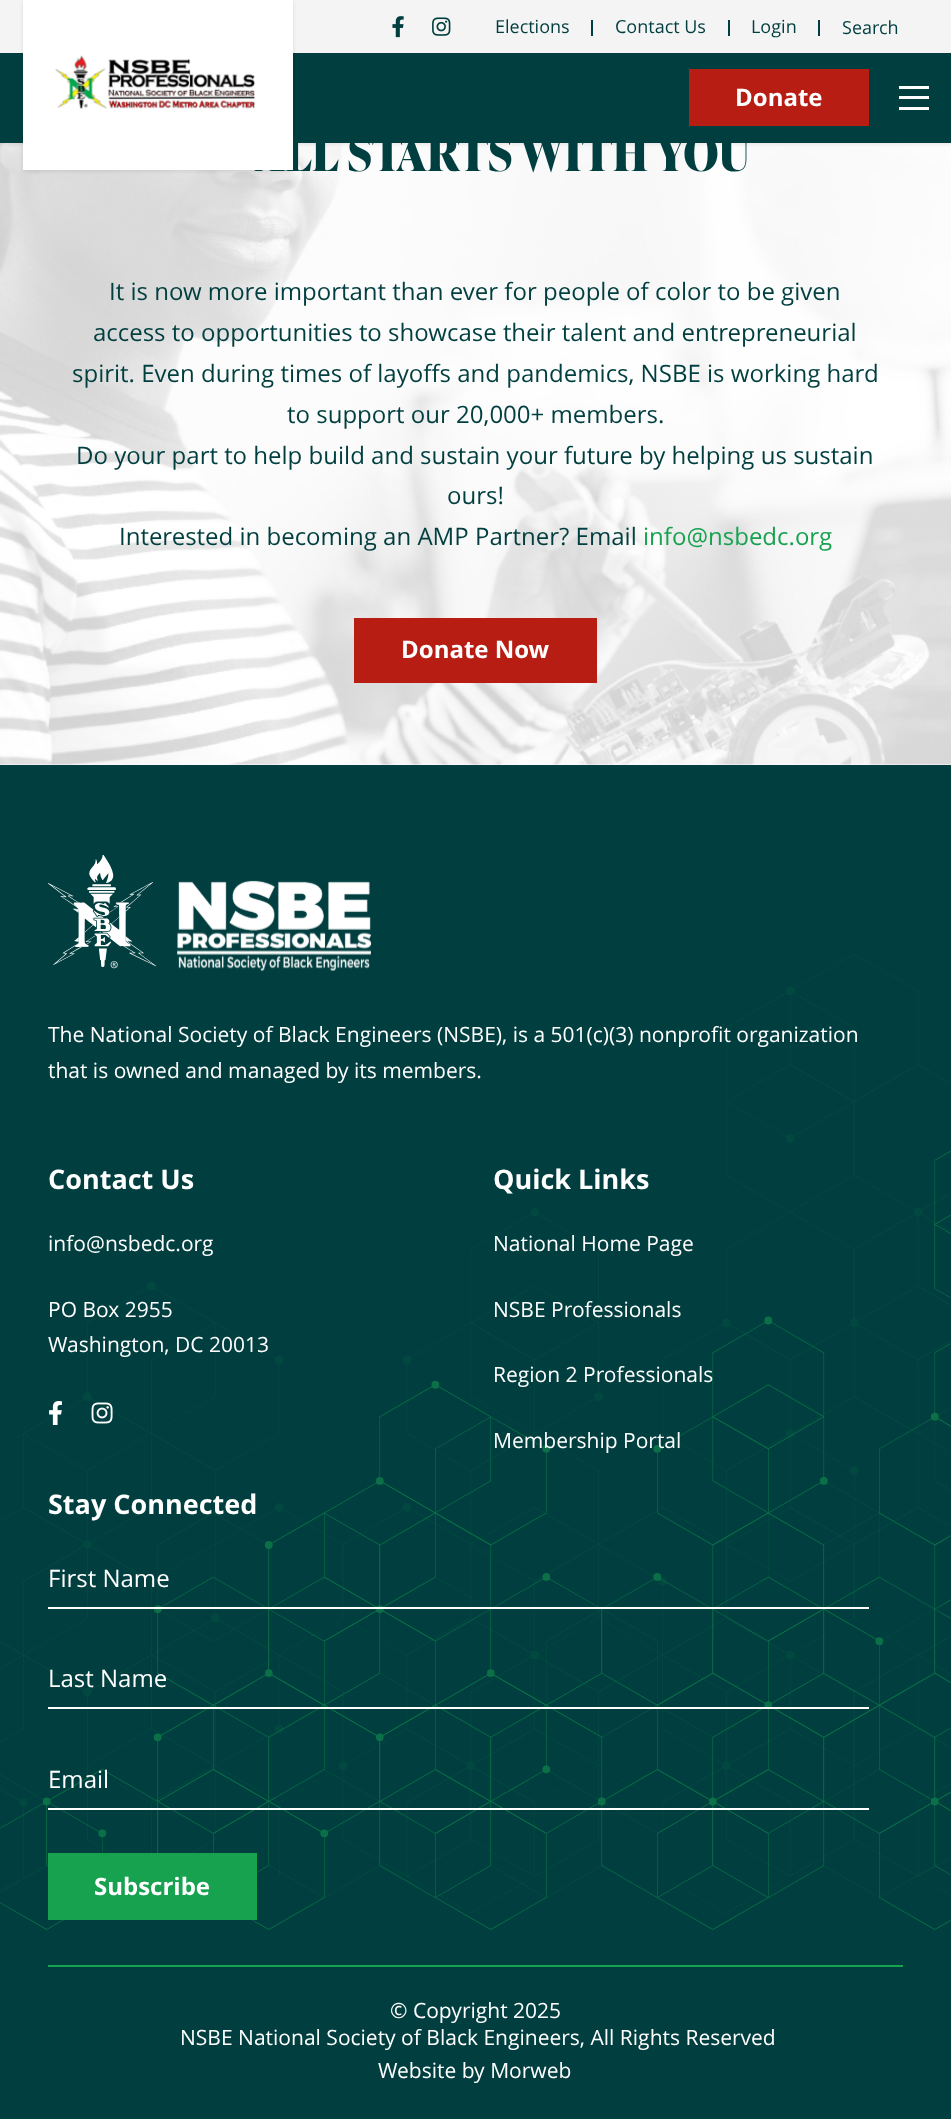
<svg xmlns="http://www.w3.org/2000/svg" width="951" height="2119">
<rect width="100%" height="100%" fill="#fff"/>
<image x="0" y="143" width="951" height="622" href="media/4.png"/>
<rect y="2" width="951" height="142" fill="#0000001a" filter="blur(2px)"/>
<rect width="951" height="53" fill="#f4f4f4"/>
<image x="392" y="16" width="12" height="22" href="media/1.png"/>
<image x="432" y="17" width="19" height="19" href="media/2.png"/>
<text x="495" y="33" style="font-family:Open Sans;font-size:18px;fill:#003e3f">Elections</text>
<rect x="591" y="20" width="2" height="16" fill="#003e3f"/>
<text x="615" y="33" style="font-family:Open Sans;font-size:18px;fill:#003e3f">Contact Us</text>
<rect x="728" y="20" width="2" height="16" fill="#003e3f"/>
<text x="751" y="33" style="font-family:Open Sans;font-size:18px;fill:#003e3f">Login</text>
<rect x="818" y="20" width="2" height="16" fill="#003e3f"/>
<text x="842" y="34" style="font-family:Open Sans;font-size:18px;fill:#003e3f">Search</text>
<rect y="53" width="951" height="90" fill="#003e3f"/>
<rect x="23" y="2" width="270" height="169" fill="#0000001a" filter="blur(2px)"/>
<text x="255" y="171" style="font-family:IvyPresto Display;font-size:48px;font-weight:bold;fill:#003e3f">ALL STARTS WITH YOU</text>
<rect x="23" width="270" height="170" fill="#fff"/>
<image x="55" y="55" width="200" height="54" href="media/3.png"/>
<rect x="689" y="69" width="180" height="57" fill="#b81d13"/>
<text x="735" y="106" style="font-family:Open Sans;font-size:24px;font-weight:bold;fill:#fff">Donate</text>
<rect x="899" y="86" width="30" height="3" fill="#fff"/>
<rect x="899" y="96" width="30" height="3" fill="#fff"/>
<rect x="899" y="107" width="30" height="3" fill="#fff"/>
<text x="109" y="300" style="font-family:Open Sans;font-size:24px;fill:#003e3f">It is now more important than ever for people of color to be given</text>
<text x="93" y="341" style="font-family:Open Sans;font-size:24px;fill:#003e3f">access to opportunities to showcase their talent and entrepreneurial</text>
<text x="72" y="382" style="font-family:Open Sans;font-size:24px;fill:#003e3f">spirit. Even during times of layoffs and pandemics, NSBE is working hard</text>
<text x="287" y="423" style="font-family:Open Sans;font-size:24px;fill:#003e3f">to support our 20,000+ members.</text>
<text x="76" y="464" style="font-family:Open Sans;font-size:24px;fill:#003e3f">Do your part to help build and sustain your future by helping us sustain</text>
<text x="447" y="504" style="font-family:Open Sans;font-size:24px;fill:#003e3f">ours!</text>
<text x="119" y="545" style="font-family:Open Sans;font-size:24px;fill:#003e3f">Interested in becoming an AMP Partner? Email</text>
<text x="643" y="545" style="font-family:Open Sans;font-size:24px;fill:#17a250">info@nsbedc.org</text>
<rect x="354" y="618" width="243" height="65" fill="#b81d13"/>
<text x="401" y="658" style="font-family:Open Sans;font-size:24px;font-weight:bold;fill:#fff">Donate Now</text>
<rect y="765" width="951" height="1354" fill="#003e3f"/>
<image x="0" y="954" width="951" height="976" href="media/5.png"/>
<image x="48" y="855" width="324" height="116" href="media/6.png"/>
<text x="48" y="1042" style="font-family:Open Sans;font-size:21px;fill:#fff">The National Society of Black Engineers (NSBE), is a 501(c)(3) nonprofit organization</text>
<text x="48" y="1078" style="font-family:Open Sans;font-size:21px;fill:#fff">that is owned and managed by its members.</text>
<text x="48" y="1189" style="font-family:Open Sans;font-size:27px;font-weight:bold;fill:#fff">Contact Us</text>
<text x="48" y="1251" style="font-family:Open Sans;font-size:21px;fill:#fff">info@nsbedc.org</text>
<text x="48" y="1317" style="font-family:Open Sans;font-size:21px;fill:#fff">PO Box 2955</text>
<text x="48" y="1352" style="font-family:Open Sans;font-size:21px;fill:#fff">Washington, DC 20013</text>
<image x="49" y="1401" width="13" height="24" href="media/7.png"/>
<image x="91" y="1402" width="22" height="22" href="media/8.png"/>
<text x="493" y="1189" style="font-family:Open Sans;font-size:27px;font-weight:bold;fill:#fff">Quick Links</text>
<text x="493" y="1251" style="font-family:Open Sans;font-size:21px;fill:#fff">National Home Page</text>
<text x="493" y="1317" style="font-family:Open Sans;font-size:21px;fill:#fff">NSBE Professionals</text>
<text x="493" y="1382" style="font-family:Open Sans;font-size:21px;fill:#fff">Region 2 Professionals</text>
<text x="493" y="1448" style="font-family:Open Sans;font-size:21px;fill:#fff">Membership Portal</text>
<text x="48" y="1514" style="font-family:Open Sans;font-size:27px;font-weight:bold;fill:#fff">Stay Connected</text>
<rect x="48" y="1607" width="821" height="2" fill="#fff"/>
<text x="48" y="1587" style="font-family:Open Sans;font-size:24px;fill:#fff">First Name</text>
<rect x="48" y="1707" width="821" height="2" fill="#fff"/>
<text x="48" y="1687" style="font-family:Open Sans;font-size:24px;fill:#fff">Last Name</text>
<rect x="48" y="1808" width="821" height="2" fill="#fff"/>
<text x="48" y="1788" style="font-family:Open Sans;font-size:24px;fill:#fff">Email</text>
<rect x="48" y="1853" width="209" height="67" fill="#17a250"/>
<text x="94" y="1895" style="font-family:Open Sans;font-size:24px;font-weight:bold;fill:#fff">Subscribe</text>
<rect x="48" y="1965" width="855" height="2" fill="#17a250"/>
<text x="390" y="2018" style="font-family:Open Sans;font-size:21px;fill:#fff">© Copyright 2025</text>
<text x="180" y="2045" style="font-family:Open Sans;font-size:21px;fill:#fff">NSBE National Society of Black Engineers, All Rights Reserved</text>
<text x="378" y="2078" style="font-family:Open Sans;font-size:21px;fill:#fff">Website by Morweb</text>
</svg>
